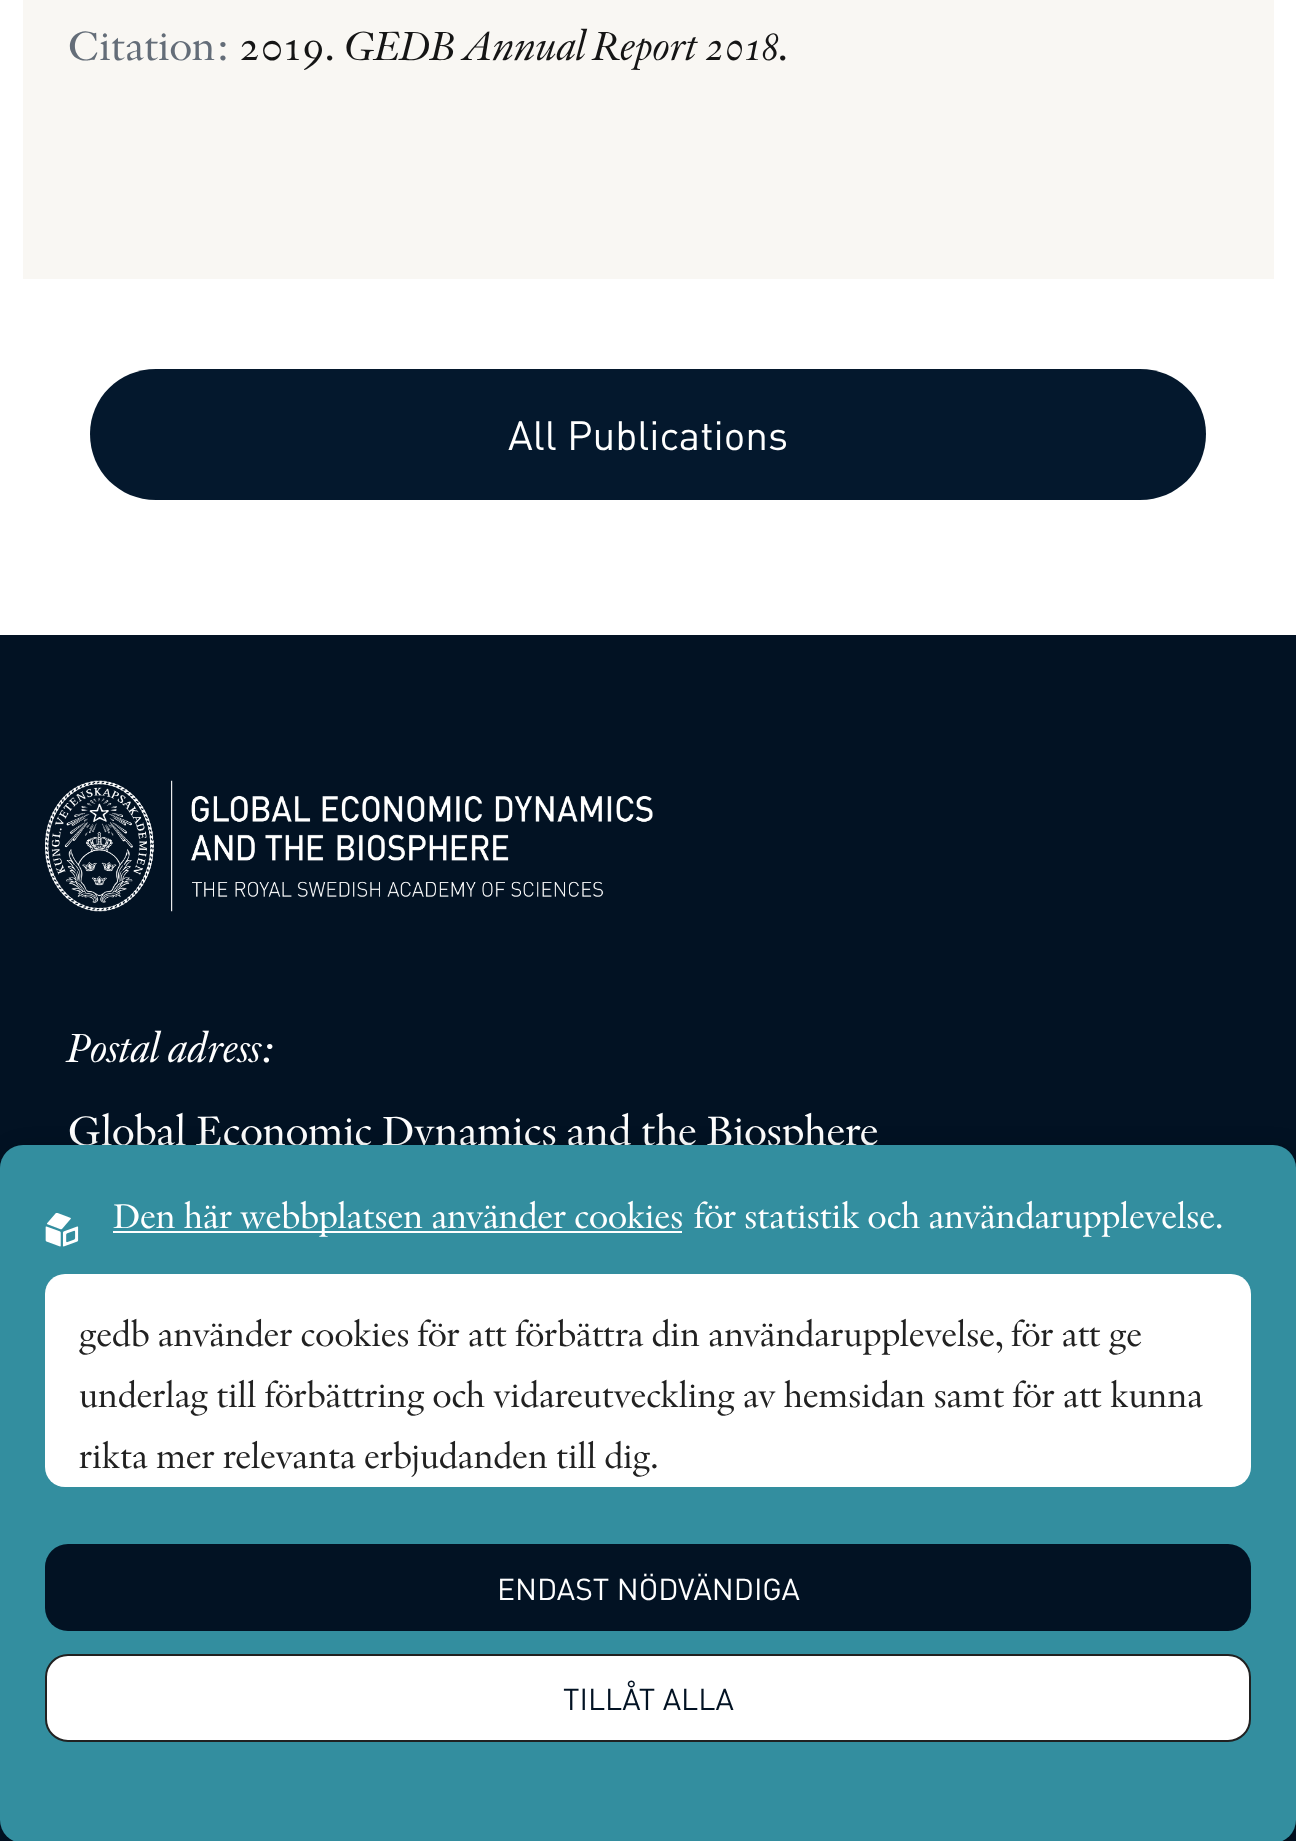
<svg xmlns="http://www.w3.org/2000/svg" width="1296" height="1841">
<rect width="100%" height="100%" fill="#fff"/>
<rect x="23" width="1251" height="279" fill="#f9f7f3"/>
<text x="68" y="60" style="font-family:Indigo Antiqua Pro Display;font-size:42.75px;fill:#646d78">Citation:</text>
<text x="239" y="60" style="font-family:Indigo Antiqua Pro Display;font-size:42.75px;fill:#151515">2019.</text>
<text x="345" y="60" style="font-family:Indigo Antiqua Pro Display;font-size:42.75px;font-style:italic;fill:#151515">GEDB Annual Report 2018.</text>
<path d="M156 369h984c37 0 66 29 66 65c0 37-29 66-66 66h-984c-37 0-66-29-66-66c0-36 29-65 66-65z" fill="#04182d"/>
<text x="508" y="450" style="font-family:DIN;font-size:40.5px;fill:#fff">All Publications</text>
<rect y="635" width="1296" height="1206" fill="#021223"/>
<image x="45" y="780" width="608" height="132" href="media/1.png"/>
<text x="68" y="1062" style="font-family:Indigo Antiqua Pro Display;font-size:42.75px;font-style:italic;fill:#fff">Postal adress:</text>
<text x="68" y="1145" style="font-family:Indigo Antiqua Pro Display;font-size:42.75px;fill:#fff">Global Economic Dynamics and the Biosphere</text>
<rect x="5" y="1150" width="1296" height="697" rx="23" fill="#00000040" filter="blur(11px)"/>
<rect y="1145" width="1296" height="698" rx="23" fill="#338e9f"/>
<image x="45" y="1213" width="34" height="34" href="media/2.png"/>
<rect x="113" y="1231" width="569" height="2" fill="#fff"/>
<text x="113" y="1228" style="font-family:Indigo Antiqua Pro Display;font-size:36px;fill:#fff">Den här webbplatsen använder cookies</text>
<text x="694" y="1228" style="font-family:Indigo Antiqua Pro Display;font-size:36px;fill:#fff">för statistik och användarupplevelse.</text>
<rect x="45" y="1274" width="1206" height="213" rx="20" fill="#fff"/>
<text x="79" y="1346" style="font-family:Indigo Antiqua Pro Display;font-size:36px;fill:#212121">gedb använder cookies för att förbättra din användarupplevelse, för att ge</text>
<text x="79" y="1407" style="font-family:Indigo Antiqua Pro Display;font-size:36px;fill:#212121">underlag till förbättring och vidareutveckling av hemsidan samt för att kunna</text>
<text x="79" y="1468" style="font-family:Indigo Antiqua Pro Display;font-size:36px;fill:#212121">rikta mer relevanta erbjudanden till dig.</text>
<rect x="45" y="1544" width="1206" height="87" rx="23" fill="#021223"/>
<text x="497" y="1600" style="font-family:DIN;font-size:30px;fill:#fff">ENDAST NÖDVÄNDIGA</text>
<rect x="46" y="1655" width="1204" height="86" rx="22" fill="#fff" stroke="#212121" stroke-width="2"/>
<text x="563" y="1710" style="font-family:DIN;font-size:30px;fill:#021223">TILLÅT ALLA</text>
</svg>
